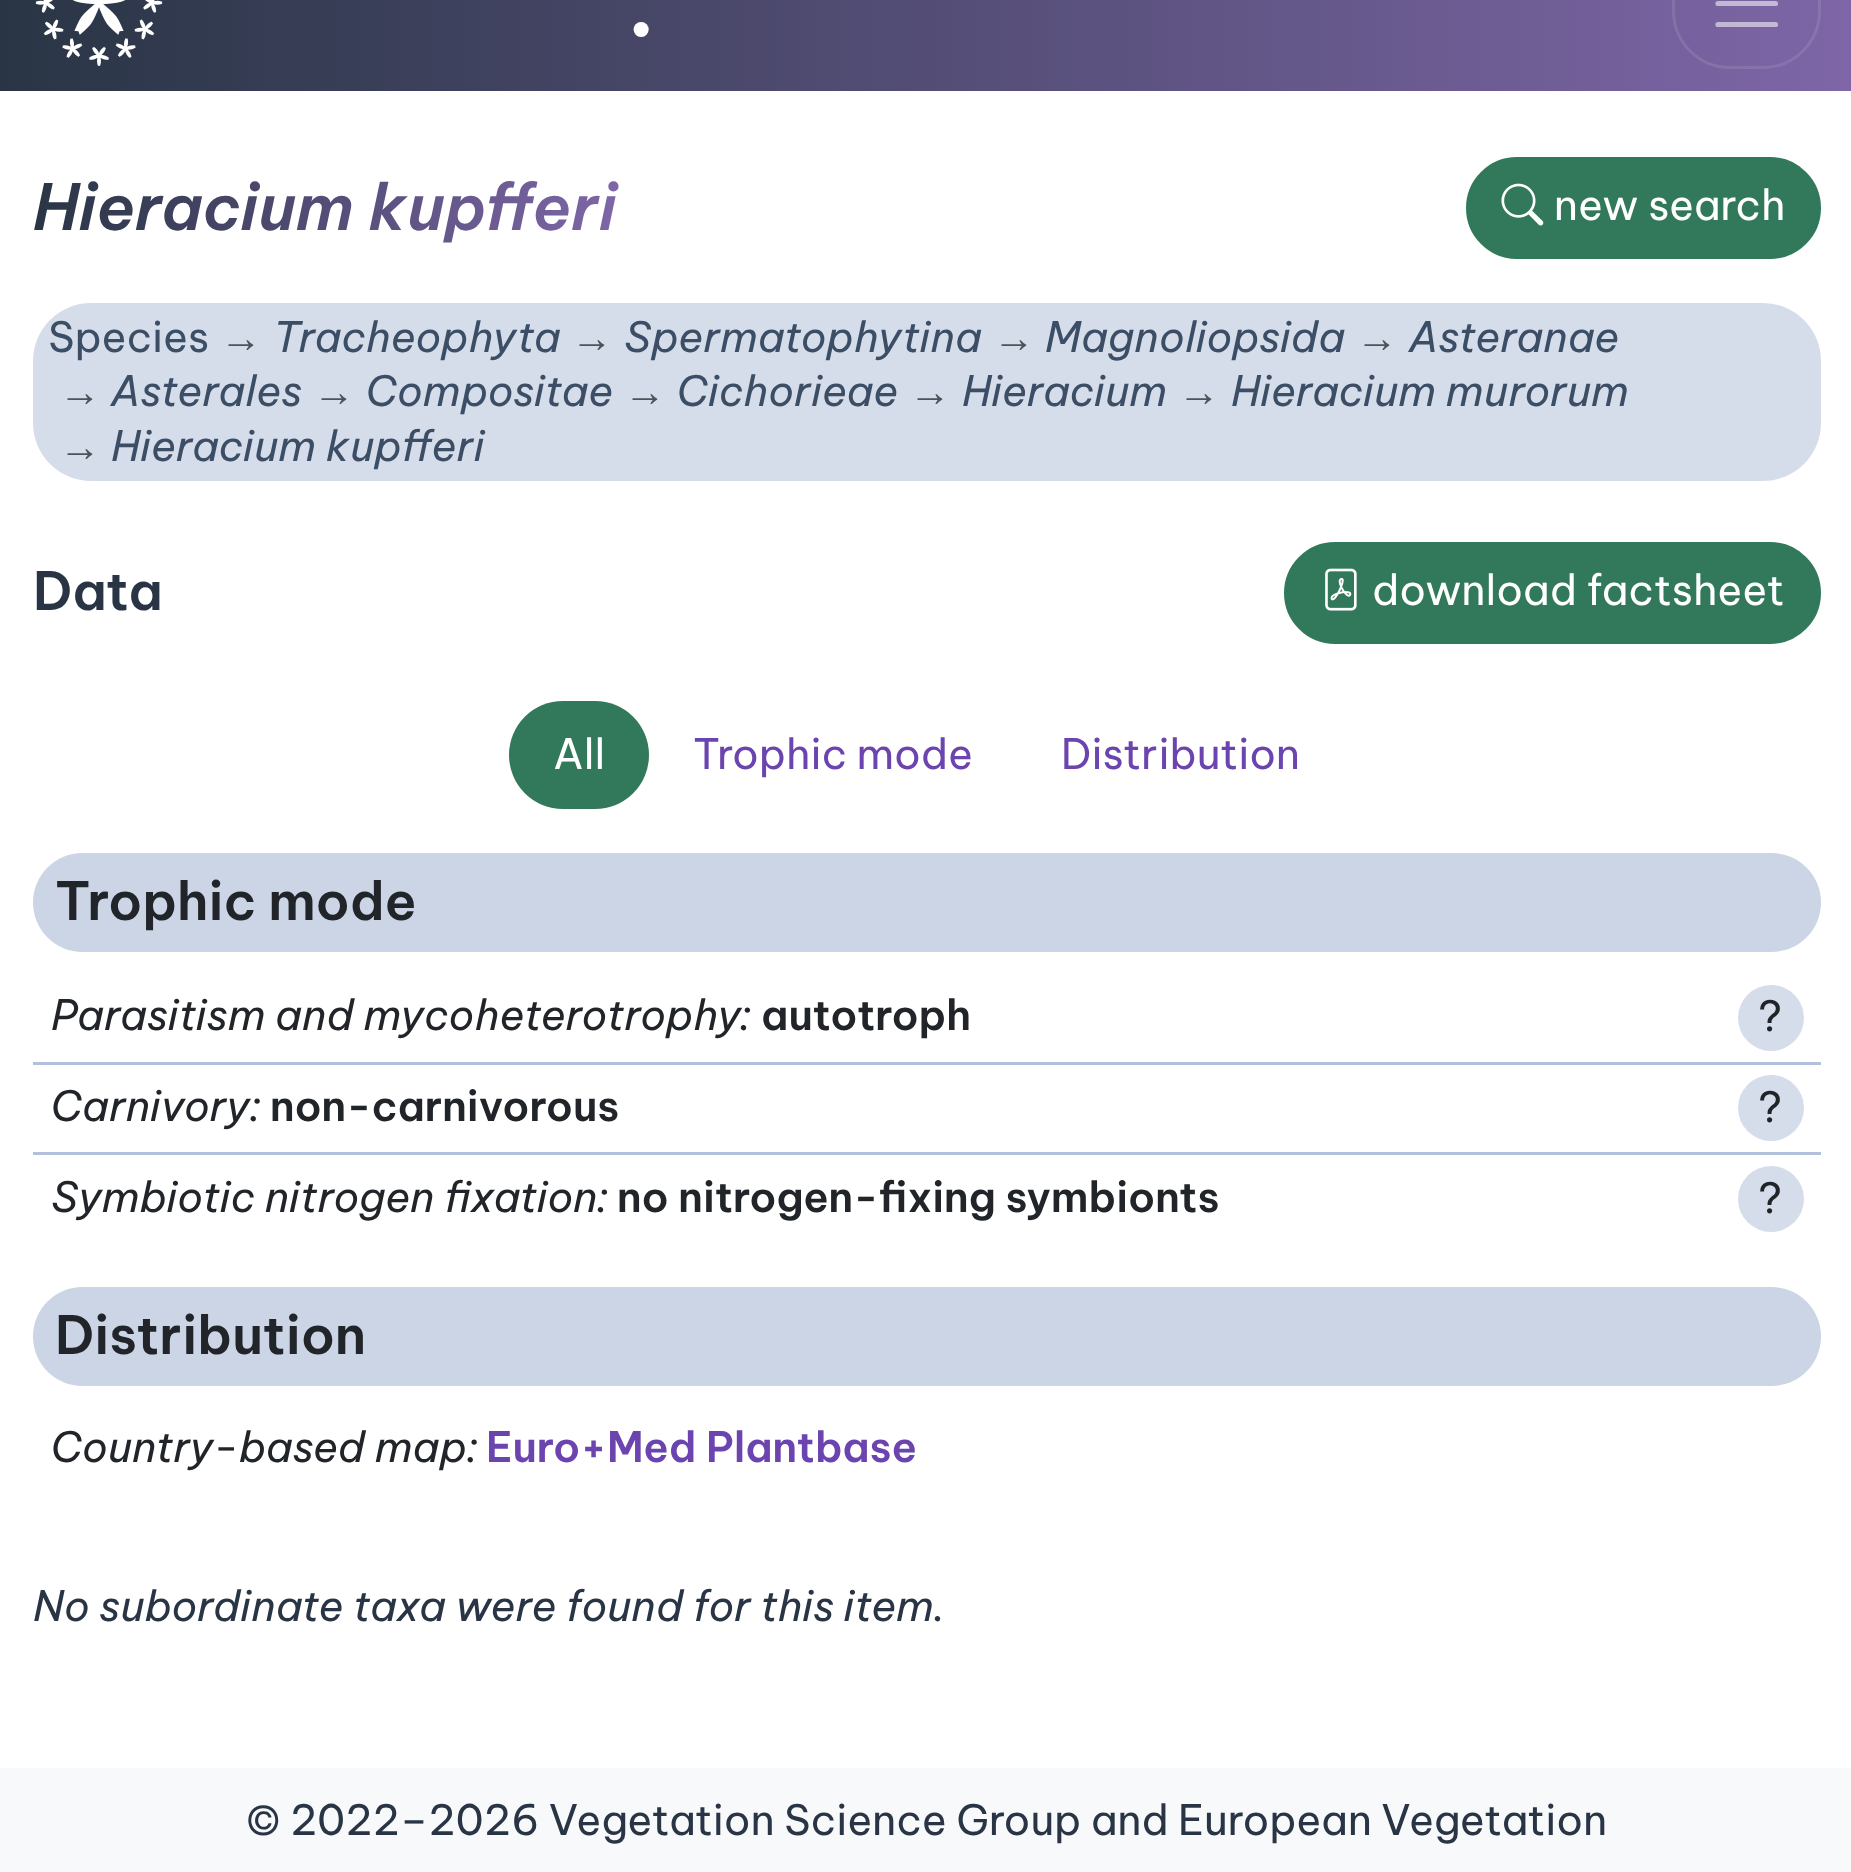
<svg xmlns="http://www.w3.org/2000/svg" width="1851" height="1872">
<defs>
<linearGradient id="g1" gradientUnits="userSpaceOnUse" x1="33" y1="207" x2="617" y2="207"><stop offset="0" stop-color="#293545"/><stop offset="1" stop-color="#7e66a7"/></linearGradient>
<linearGradient id="g2" gradientUnits="userSpaceOnUse" x1="0" y1="2.8" x2="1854" y2="2.7"><stop offset="0" stop-color="#293545"/><stop offset="1" stop-color="#7e66a7"/></linearGradient>
</defs>
<rect width="100%" height="100%" fill="#fff"/>
<rect width="1851" height="91" fill="url(#g2)"/>
<image x="35" y="0" width="128" height="66" href="media/1.png"/>
<text x="626" y="36" style="font-family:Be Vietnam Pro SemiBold;font-size:95px;font-weight:600;fill:#fff">.</text>
<rect x="1673.5" y="-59.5" width="146" height="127" rx="56.5" fill="none" stroke="#ffffff1a" stroke-width="3"/>
<path d="M1718-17.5h57.5m-57.5 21h57.5m-57.5 21h57.5" fill="none" stroke="#ffffff8c" stroke-width="5.2" stroke-linecap="round"/>
<text x="33" y="230" style="font-family:Be Vietnam Pro SemiBold;font-size:63.5px;font-weight:600;font-style:italic;fill:url(#g1)">Hieracium kupfferi</text>
<rect x="1467.5" y="158.5" width="352" height="99" rx="49.5" fill="#31795a" stroke="#31795a" stroke-width="3"/>
<image x="1501" y="183" width="43" height="43" href="media/2.png"/>
<text x="1554" y="220" style="font-family:Be Vietnam Pro;font-size:41.8px;fill:#fff">new search</text>
<rect x="33" y="303" width="1788" height="178" rx="58" fill="#d5ddeb"/>
<text x="48" y="352" style="font-family:Be Vietnam Pro;font-size:41.8px;fill:#3c4e65">Species</text>
<text x="220" y="352" style="font-family:Liberation Sans;font-size:41.8px;fill:#4e535a">→</text>
<text x="273" y="352" style="font-family:Be Vietnam Pro;font-size:41.8px;font-style:italic;fill:#3c4e65">Tracheophyta</text>
<text x="571" y="352" style="font-family:Liberation Sans;font-size:41.8px;fill:#4e535a">→</text>
<text x="624" y="352" style="font-family:Be Vietnam Pro;font-size:41.8px;font-style:italic;fill:#3c4e65">Spermatophytina</text>
<text x="993" y="352" style="font-family:Liberation Sans;font-size:41.8px;fill:#4e535a">→</text>
<text x="1045" y="352" style="font-family:Be Vietnam Pro;font-size:41.8px;font-style:italic;fill:#3c4e65">Magnoliopsida</text>
<text x="1356" y="352" style="font-family:Liberation Sans;font-size:41.8px;fill:#4e535a">→</text>
<text x="1409" y="352" style="font-family:Be Vietnam Pro;font-size:41.8px;font-style:italic;fill:#3c4e65">Asteranae</text>
<text x="59" y="406" style="font-family:Liberation Sans;font-size:41.8px;fill:#4e535a">→</text>
<text x="111" y="406" style="font-family:Be Vietnam Pro;font-size:41.8px;font-style:italic;fill:#3c4e65">Asterales</text>
<text x="313" y="406" style="font-family:Liberation Sans;font-size:41.8px;fill:#4e535a">→</text>
<text x="366" y="406" style="font-family:Be Vietnam Pro;font-size:41.8px;font-style:italic;fill:#3c4e65">Compositae</text>
<text x="624" y="406" style="font-family:Liberation Sans;font-size:41.8px;fill:#4e535a">→</text>
<text x="677" y="406" style="font-family:Be Vietnam Pro;font-size:41.8px;font-style:italic;fill:#3c4e65">Cichorieae</text>
<text x="909" y="406" style="font-family:Liberation Sans;font-size:41.8px;fill:#4e535a">→</text>
<text x="962" y="406" style="font-family:Be Vietnam Pro;font-size:41.8px;font-style:italic;fill:#3c4e65">Hieracium</text>
<text x="1178" y="406" style="font-family:Liberation Sans;font-size:41.8px;fill:#4e535a">→</text>
<text x="1231" y="406" style="font-family:Be Vietnam Pro;font-size:41.8px;font-style:italic;fill:#3c4e65">Hieracium murorum</text>
<text x="59" y="461" style="font-family:Liberation Sans;font-size:41.8px;fill:#4e535a">→</text>
<text x="111" y="461" style="font-family:Be Vietnam Pro;font-size:41.8px;font-style:italic;fill:#3c4e65">Hieracium kupfferi</text>
<text x="33" y="610" style="font-family:Be Vietnam Pro SemiBold;font-size:52.75px;font-weight:600;fill:#293545">Data</text>
<rect x="1285.5" y="543.5" width="534" height="99" rx="49.5" fill="#31795a" stroke="#31795a" stroke-width="3"/>
<image x="1325" y="568" width="32" height="43" href="media/3.png"/>
<text x="1372" y="605" style="font-family:Be Vietnam Pro;font-size:41.8px;fill:#fff">download factsheet</text>
<rect x="509" y="701" width="140" height="108" rx="54" fill="#31795a"/>
<text x="553" y="769" style="font-family:Be Vietnam Pro;font-size:41.8px;fill:#fff">All</text>
<text x="693" y="769" style="font-family:Be Vietnam Pro;font-size:41.8px;fill:#6c44af">Trophic mode</text>
<text x="1061" y="769" style="font-family:Be Vietnam Pro;font-size:41.8px;fill:#6c44af">Distribution</text>
<rect x="33" y="853" width="1788" height="99" rx="49.5" fill="#cbd5e6"/>
<text x="55" y="920" style="font-family:Be Vietnam Pro SemiBold;font-size:52.75px;font-weight:600;fill:#212529">Trophic mode</text>
<text x="51" y="1030" style="font-family:Be Vietnam Pro;font-size:41.8px;font-style:italic;fill:#212529">Parasitism and mycoheterotrophy</text>
<text x="740" y="1030" style="font-family:Be Vietnam Pro;font-size:41.8px;font-style:italic;fill:#212529">:</text>
<text x="761" y="1030" style="font-family:Be Vietnam Pro SemiBold;font-size:41.8px;font-weight:600;fill:#212529">autotroph</text>
<circle cx="1771" cy="1018" r="33" fill="#d5ddeb"/>
<text x="1758" y="1031" style="font-family:Be Vietnam Pro;font-size:41.8px;fill:#212529">?</text>
<rect x="33" y="1062" width="1788" height="3" fill="#b2c1db"/>
<text x="51" y="1121" style="font-family:Be Vietnam Pro;font-size:41.8px;font-style:italic;fill:#212529">Carnivory:</text>
<text x="270" y="1121" style="font-family:Be Vietnam Pro SemiBold;font-size:41.8px;font-weight:600;fill:#212529">non-carnivorous</text>
<circle cx="1771" cy="1108" r="33" fill="#d5ddeb"/>
<text x="1758" y="1122" style="font-family:Be Vietnam Pro;font-size:41.8px;fill:#212529">?</text>
<rect x="33" y="1152" width="1788" height="3" fill="#b2c1db"/>
<text x="51" y="1212" style="font-family:Be Vietnam Pro;font-size:41.8px;font-style:italic;fill:#212529">Symbiotic nitrogen fixation</text>
<text x="597" y="1212" style="font-family:Be Vietnam Pro;font-size:41.8px;font-style:italic;fill:#212529">:</text>
<text x="617" y="1212" style="font-family:Be Vietnam Pro SemiBold;font-size:41.8px;font-weight:600;fill:#212529">no nitrogen-fixing symbionts</text>
<circle cx="1771" cy="1199" r="33" fill="#d5ddeb"/>
<text x="1758" y="1213" style="font-family:Be Vietnam Pro;font-size:41.8px;fill:#212529">?</text>
<rect x="33" y="1287" width="1788" height="99" rx="49.5" fill="#cbd5e6"/>
<text x="55" y="1354" style="font-family:Be Vietnam Pro SemiBold;font-size:52.75px;font-weight:600;fill:#212529">Distribution</text>
<text x="51" y="1462" style="font-family:Be Vietnam Pro;font-size:41.8px;font-style:italic;fill:#212529">Country-based map:</text>
<text x="486" y="1462" style="font-family:Be Vietnam Pro SemiBold;font-size:41.8px;font-weight:600;fill:#6c44af">Euro+Med Plantbase</text>
<text x="33" y="1621" style="font-family:Be Vietnam Pro;font-size:41.8px;font-style:italic;fill:#293545">No subordinate taxa were found for this item.</text>
<rect y="1768" width="1851" height="104" fill="#f8f9fb"/>
<text x="246" y="1835" word-spacing="-0.25" style="font-family:Be Vietnam Pro;font-size:41.8px;fill:#293545">© 2022–2026 Vegetation Science Group and European Vegetation</text>
</svg>
